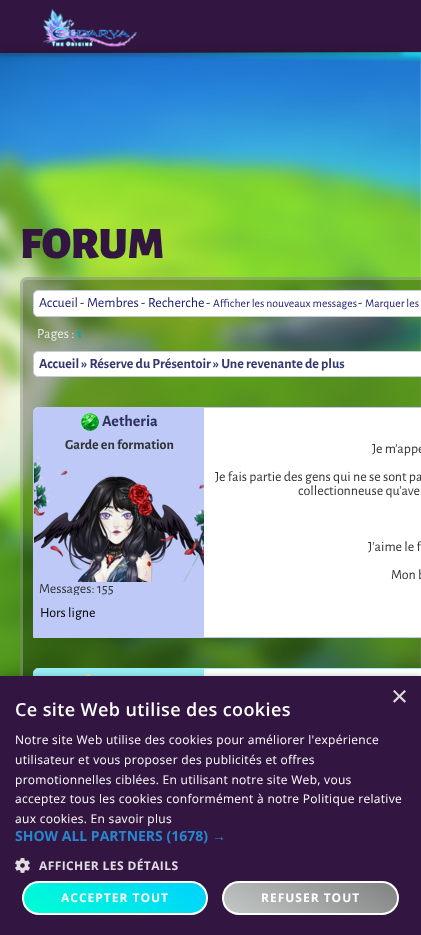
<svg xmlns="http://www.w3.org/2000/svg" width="421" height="935">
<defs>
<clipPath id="clip1"><rect x="22" y="881" width="186" height="34" rx="17"/></clipPath>
<linearGradient id="g1" gradientUnits="userSpaceOnUse" x1="146" y1="847" x2="84" y2="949"><stop offset="0" stop-color="#00d0ff"/><stop offset="1" stop-color="#00ffd3"/></linearGradient>
<clipPath id="clip2"><rect x="222" y="881" width="177" height="34" rx="17"/></clipPath>
<linearGradient id="g2" gradientUnits="userSpaceOnUse" x1="340" y1="849" x2="281" y2="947"><stop offset="0" stop-color="#818181"/><stop offset="1" stop-color="#c3c8c7"/></linearGradient>
</defs>
<rect width="100%" height="100%" fill="#fff"/>
<rect width="421" height="53" fill="#321540"/>
<image x="41" y="8" width="96" height="39" href="media/1.png"/>
<image x="0" y="53" width="421" height="623" href="media/3.png"/>
<image x="113" y="52" width="308" height="10" href="media/2.png"/>
<rect x="-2" y="51" width="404" height="4" fill="#1b1b1b69" filter="blur(2.5px)"/>
<text x="20" y="258" style="font-family:Alegreya Sans SC;font-size:45px;font-weight:900;fill:#321540">FORUM</text>
<rect x="20" y="277" width="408" height="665" rx="7" fill="#0000004d"/>
<rect x="21.5" y="278.5" width="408" height="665" rx="5.5" fill="none" stroke="#ffffff40" stroke-width="3"/>
<rect x="33.5" y="290.5" width="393" height="26" rx="4.5" fill="#fff" stroke="#c7ccda"/>
<text x="39" y="307" style="font-family:Alegreya Sans;font-size:14px;fill:#191970">Accueil</text>
<text x="80" y="307" style="font-family:Alegreya Sans;font-size:14px;fill:#000">-</text>
<text x="87" y="307" style="font-family:Alegreya Sans;font-size:14px;fill:#191970">Membres</text>
<text x="141" y="307" style="font-family:Alegreya Sans;font-size:14px;fill:#000">-</text>
<text x="148" y="307" style="font-family:Alegreya Sans;font-size:14px;fill:#191970">Recherche</text>
<text x="206" y="307" style="font-family:Alegreya Sans;font-size:14px;fill:#000">-</text>
<text x="213" y="307" style="font-family:Alegreya Sans;font-size:11.75px;fill:#191970">Afficher les nouveaux messages</text>
<text x="358" y="307" style="font-family:Alegreya Sans;font-size:14px;fill:#000">-</text>
<text x="365" y="307" style="font-family:Alegreya Sans;font-size:11.75px;fill:#191970">Marquer les</text>
<text x="37" y="338" style="font-family:Alegreya Sans;font-size:14px;fill:#e7ebe3">Pages :</text>
<text x="77" y="338" style="font-family:Alegreya Sans;font-size:14px;font-weight:bold;fill:#01abb5">1</text>
<rect x="33.5" y="351.5" width="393" height="25" rx="4.5" fill="#fff" stroke="#c7ccda"/>
<text x="39" y="368" style="font-family:Alegreya Sans;font-size:14px;font-weight:bold;fill:#34386f">Accueil » Réserve du Présentoir » Une revenante de plus</text>
<path d="M38 407.5h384c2.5 0 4.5 2 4.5 4.5v225.5h-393v-225.5c0-2.5 2-4.5 4.5-4.5z" fill="#fff" stroke="#bec9f8"/>
<path d="M38 408h166v188h-170v-184c0-2 2-4 4-4z" fill="#bec9f8"/>
<image x="81" y="413" width="18" height="18" href="media/4.png"/>
<text x="102" y="426" style="font-family:Alegreya Sans;font-size:16px;font-weight:bold;fill:#2b2f5d">Aetheria</text>
<text x="65" y="449" style="font-family:Alegreya Sans;font-size:14px;font-weight:bold;fill:#333">Garde en formation</text>
<image x="34" y="456" width="170" height="126" href="media/5.png"/>
<text x="39" y="593" style="font-family:Alegreya Sans;font-size:14px;fill:#333">Messages: 155</text>
<text x="372" y="453" style="font-family:Alegreya Sans;font-size:14px;fill:#333">Je m’appe</text>
<text x="215" y="481" style="font-family:Alegreya Sans;font-size:14px;fill:#333">Je fais partie des gens qui ne se sont pa</text>
<text x="298" y="495" style="font-family:Alegreya Sans;font-size:14px;fill:#333">collectionneuse qu’ave</text>
<text x="368" y="551" style="font-family:Alegreya Sans;font-size:14px;fill:#333">J’aime le f</text>
<text x="391" y="579" style="font-family:Alegreya Sans;font-size:14px;fill:#333">Mon b</text>
<rect x="34" y="595" width="170" height="42" fill="#bec9f8"/>
<text x="40" y="617" style="font-family:Alegreya Sans;font-size:14px;fill:#000">Hors ligne</text>
<path d="M38 668.5h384c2.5 0 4.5 2 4.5 4.5v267.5h-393v-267.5c0-2.5 2-4.5 4.5-4.5z" fill="#fff" stroke="#96eff5"/>
<path d="M38 669h166v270h-170v-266c0-2 2-4 4-4z" fill="#96eff5"/>
<image x="84" y="674" width="10" height="2" href="media/6.png"/>
<rect x="1" y="678" width="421" height="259" fill="#00000059" filter="blur(4px)"/>
<rect y="676" width="421" height="259" fill="#321540"/>
<text x="391" y="706" style="font-family:Liberation Sans;font-size:29px;fill:#e0dce2">×</text>
<text x="15" y="716" style="font-family:Open Sans;font-size:18px;font-weight:600;letter-spacing:0.4px;fill:#fff">Ce site Web utilise des cookies</text>
<text x="15" y="744" style="font-family:Open Sans;font-size:12px;letter-spacing:0.3px;fill:#fff">Notre site Web utilise des cookies pour améliorer l'expérience</text>
<text x="15" y="764" style="font-family:Open Sans;font-size:12px;letter-spacing:0.3px;fill:#fff">utilisateur et vous proposer des publicités et offres</text>
<text x="15" y="784" style="font-family:Open Sans;font-size:12px;letter-spacing:0.3px;fill:#fff">promotionnelles ciblées. En utilisant notre site Web, vous</text>
<text x="15" y="803" style="font-family:Open Sans;font-size:12px;letter-spacing:0.3px;fill:#fff">acceptez tous les cookies conformément à notre Politique relative</text>
<text x="15" y="823" style="font-family:Open Sans;font-size:12px;letter-spacing:0.3px;fill:#fff">aux cookies. En savoir plus</text>
<text x="15" y="841" style="font-family:Open Sans;font-size:14px;font-weight:bold;fill:#2986cc">SHOW ALL PARTNERS (1678)</text>
<text x="212" y="841" style="font-family:Liberation Sans;font-size:14px;font-weight:bold;fill:#2986cc">→</text>
<image x="15" y="858" width="15" height="15" href="media/7.png"/>
<text x="39" y="870" style="font-family:Open Sans;font-size:12px;font-weight:bold;letter-spacing:0.4px;fill:#e0dce2">AFFICHER LES DÉTAILS</text>
<g clip-path="url(#clip1)">
<rect x="24" y="883" width="182" height="30" fill="url(#g1)"/>
</g>
<rect x="23" y="882" width="184" height="32" rx="16" fill="none" stroke="#fff" stroke-width="2"/>
<text x="61" y="902" style="font-family:Open Sans;font-size:12px;font-weight:bold;letter-spacing:1px;fill:#fff">ACCEPTER TOUT</text>
<g clip-path="url(#clip2)">
<rect x="224" y="883" width="173" height="30" fill="url(#g2)"/>
</g>
<rect x="223" y="882" width="175" height="32" rx="16" fill="none" stroke="#fff" stroke-width="2"/>
<text x="261" y="902" style="font-family:Open Sans;font-size:12px;font-weight:bold;letter-spacing:1px;fill:#fff">REFUSER TOUT</text>
</svg>
